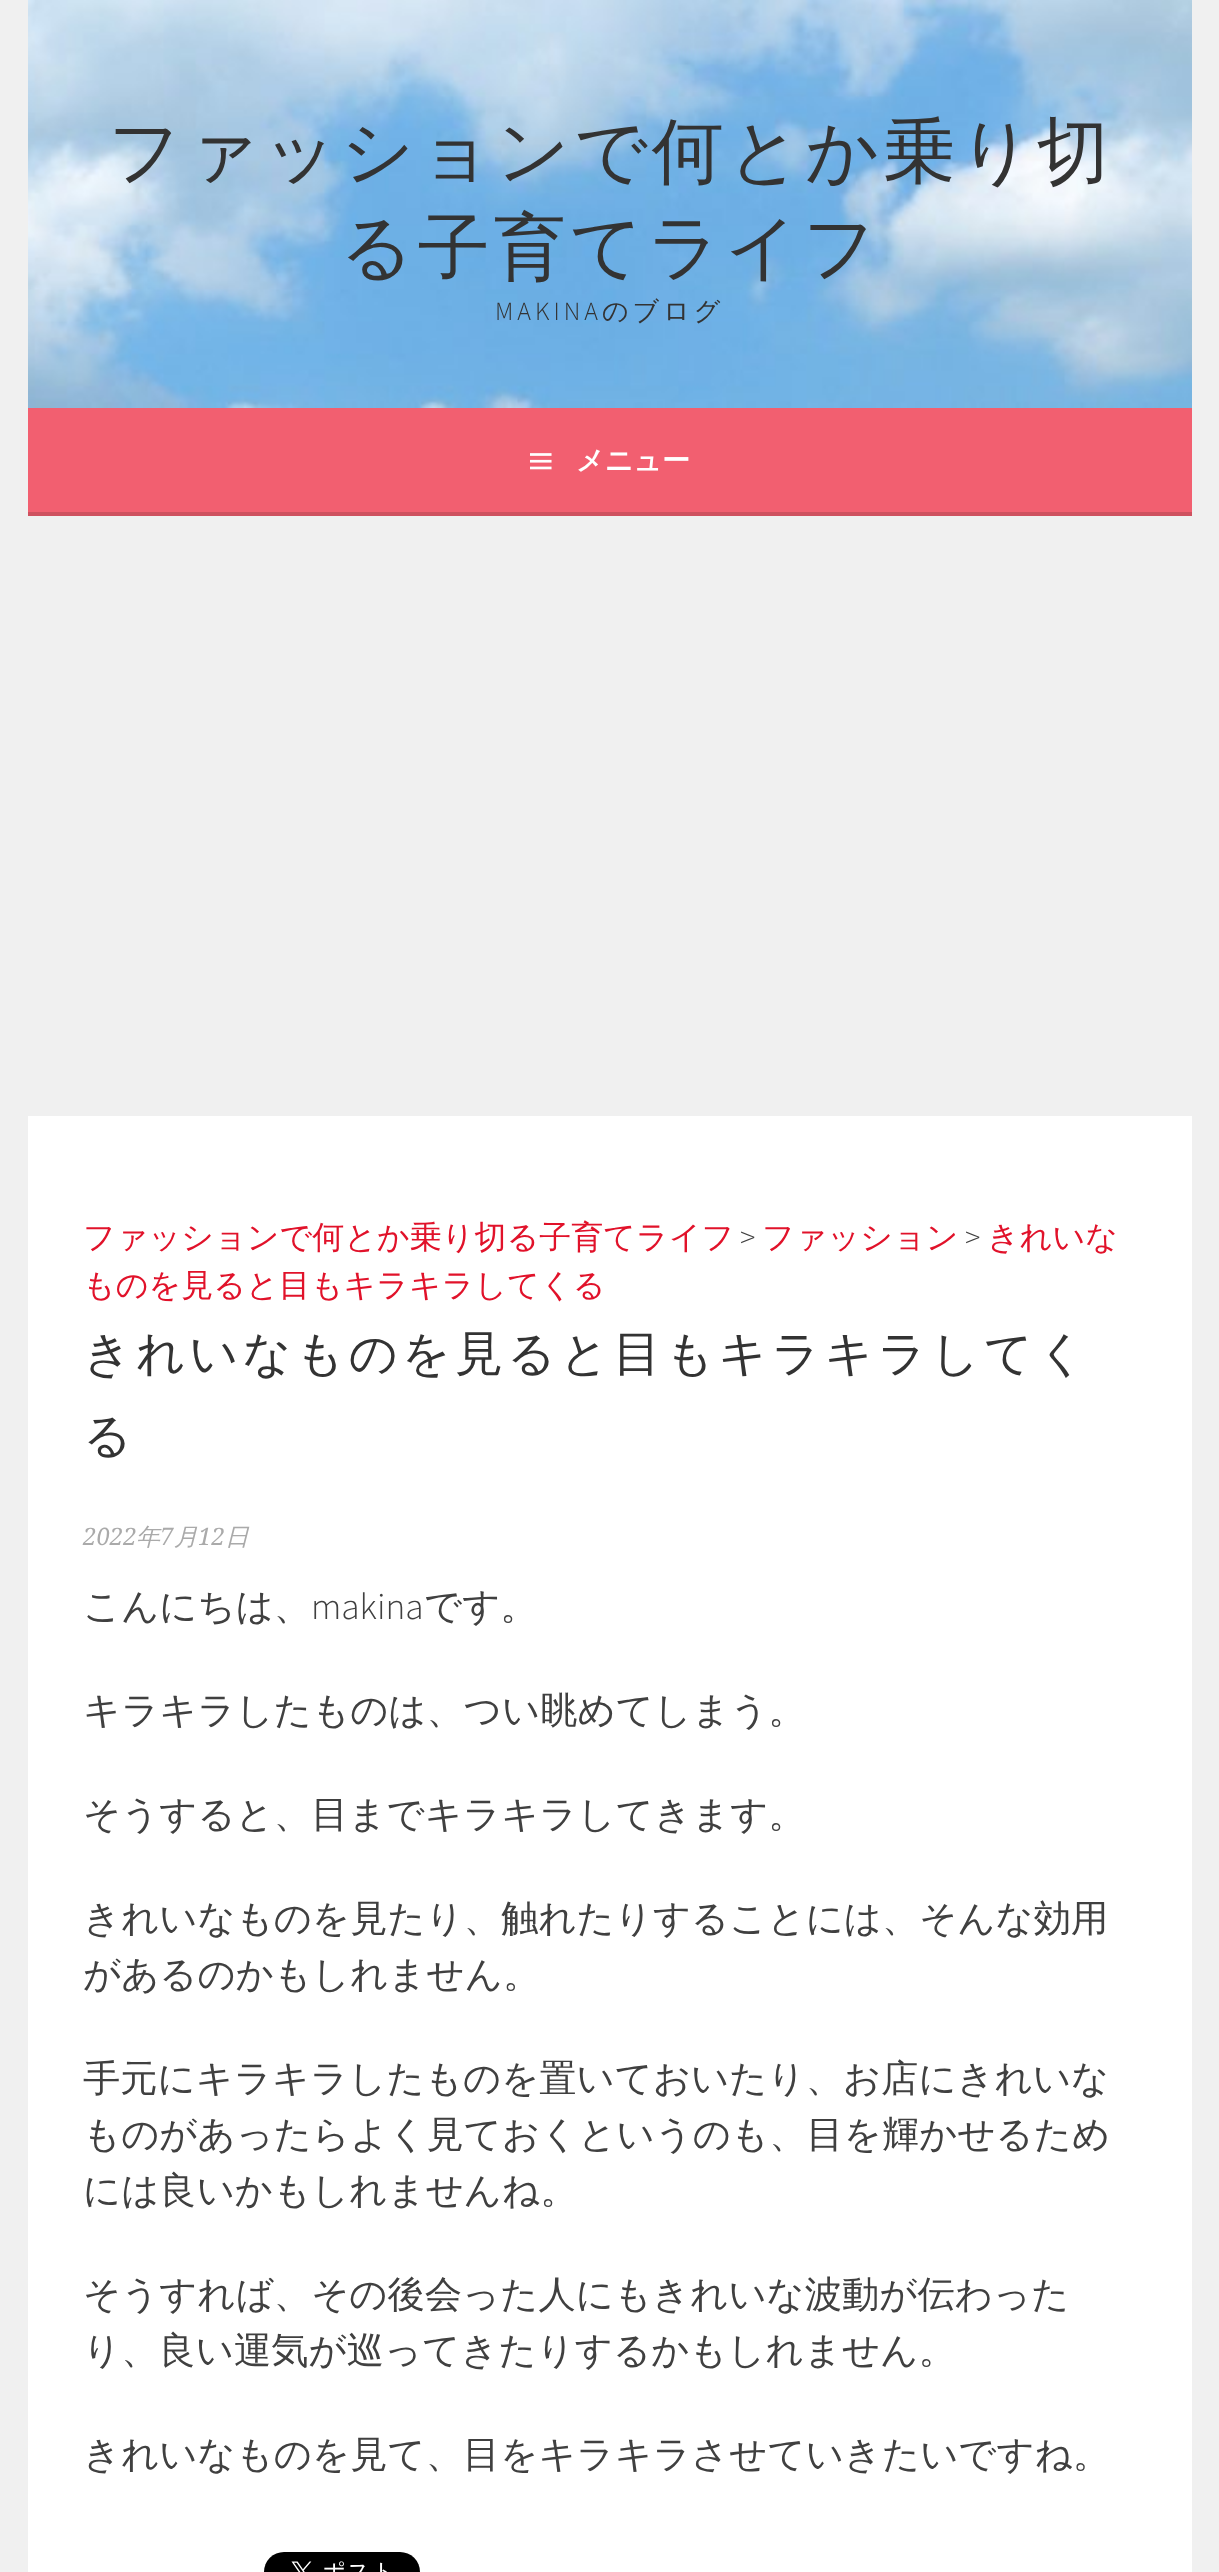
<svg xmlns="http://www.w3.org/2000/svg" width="1219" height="2572">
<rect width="100%" height="100%" fill="#f0f0f0"/>
<image x="28" y="0" width="1164" height="408" href="media/1.png"/>
<text x="108" y="176" style="font-family:WenQuanYi Zen Hei;font-size:72px;font-weight:500;letter-spacing:4px;fill:#333">ファッションで何とか乗り切</text>
<text x="340" y="272" style="font-family:WenQuanYi Zen Hei;font-size:72px;font-weight:500;letter-spacing:4px;fill:#333">る子育てライフ</text>
<text x="495" y="320" style="font-family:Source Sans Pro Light;font-size:26px;font-weight:300;letter-spacing:4px;fill:#333">MAKINA</text>
<text x="602" y="320" style="font-family:WenQuanYi Zen Hei;font-size:26px;font-weight:500;letter-spacing:4px;fill:#333">のブログ</text>
<rect x="28" y="408" width="1164" height="104" fill="#f25f70"/>
<rect x="28" y="512" width="1164" height="4" fill="#ce515f"/>
<image x="530" y="453" width="22" height="17" href="media/2.png"/>
<text x="576" y="470" style="font-family:WenQuanYi Zen Hei;font-size:28px;font-weight:bold;fill:#fff">メニュー</text>
<rect x="28" y="1116" width="1164" height="1456" fill="#fff"/>
<text x="83" y="1248" style="font-family:WenQuanYi Zen Hei;font-size:32px;font-weight:500;fill:#e1122a">ファッションで何とか乗り切る子育てライフ</text>
<text x="740" y="1248" style="font-family:Source Sans Pro Light;font-size:32px;font-weight:300;fill:#404040">&gt;</text>
<text x="762" y="1248" style="font-family:WenQuanYi Zen Hei;font-size:32px;font-weight:500;fill:#e1122a">ファッション</text>
<text x="965" y="1248" style="font-family:Source Sans Pro Light;font-size:32px;font-weight:300;fill:#404040">&gt;</text>
<text x="987" y="1248" style="font-family:WenQuanYi Zen Hei;font-size:32px;font-weight:500;fill:#e1122a">きれいな</text>
<text x="83" y="1296" style="font-family:WenQuanYi Zen Hei;font-size:32px;font-weight:500;fill:#e1122a">ものを見ると目もキラキラしてくる</text>
<text x="83" y="1370" style="font-family:WenQuanYi Zen Hei;font-size:48px;font-weight:500;letter-spacing:4px;fill:#333">きれいなものを見ると目もキラキラしてく</text>
<text x="83" y="1452" style="font-family:WenQuanYi Zen Hei;font-size:48px;font-weight:500;letter-spacing:4px;fill:#333">る</text>
<text x="83" y="1545" style="font-family:Droid Serif;font-size:24px;font-style:italic;fill:#aaa">2022</text>
<text x="136" y="1545" style="font-family:WenQuanYi Zen Hei;font-size:24px;font-weight:500;font-style:italic;fill:#aaa">年</text>
<text x="160" y="1545" style="font-family:Droid Serif;font-size:24px;font-style:italic;fill:#aaa">7</text>
<text x="174" y="1545" style="font-family:WenQuanYi Zen Hei;font-size:24px;font-weight:500;font-style:italic;fill:#aaa">月</text>
<text x="198" y="1545" style="font-family:Droid Serif;font-size:24px;font-style:italic;fill:#aaa">12</text>
<text x="225" y="1545" style="font-family:WenQuanYi Zen Hei;font-size:24px;font-weight:500;font-style:italic;fill:#aaa">日</text>
<text x="83" y="1619" style="font-family:WenQuanYi Zen Hei;font-size:37.3px;font-weight:500;fill:#404040">こんにちは、</text>
<text x="311" y="1619" style="font-family:Source Sans Pro Light;font-size:37.3px;font-weight:300;fill:#404040">makina</text>
<text x="424" y="1619" style="font-family:WenQuanYi Zen Hei;font-size:37.3px;font-weight:500;fill:#404040">です。</text>
<text x="83" y="1723" style="font-family:WenQuanYi Zen Hei;font-size:37.3px;font-weight:500;fill:#404040">キラキラしたものは、つい眺めてしまう。</text>
<text x="83" y="1827" style="font-family:WenQuanYi Zen Hei;font-size:37.3px;font-weight:500;fill:#404040">そうすると、目までキラキラしてきます。</text>
<text x="83" y="1931" style="font-family:WenQuanYi Zen Hei;font-size:37.3px;font-weight:500;fill:#404040">きれいなものを見たり、触れたりすることには、そんな効用</text>
<text x="83" y="1987" style="font-family:WenQuanYi Zen Hei;font-size:37.3px;font-weight:500;fill:#404040">があるのかもしれません。</text>
<text x="83" y="2091" style="font-family:WenQuanYi Zen Hei;font-size:37.3px;font-weight:500;fill:#404040">手元にキラキラしたものを置いておいたり、お店にきれいな</text>
<text x="83" y="2147" style="font-family:WenQuanYi Zen Hei;font-size:37.3px;font-weight:500;fill:#404040">ものがあったらよく見ておくというのも、目を輝かせるため</text>
<text x="83" y="2203" style="font-family:WenQuanYi Zen Hei;font-size:37.3px;font-weight:500;fill:#404040">には良いかもしれませんね。</text>
<text x="83" y="2307" style="font-family:WenQuanYi Zen Hei;font-size:37.3px;font-weight:500;fill:#404040">そうすれば、その後会った人にもきれいな波動が伝わった</text>
<text x="83" y="2363" style="font-family:WenQuanYi Zen Hei;font-size:37.3px;font-weight:500;fill:#404040">り、良い運気が巡ってきたりするかもしれません。</text>
<text x="83" y="2467" style="font-family:WenQuanYi Zen Hei;font-size:37.3px;font-weight:500;fill:#404040">きれいなものを見て、目をキラキラさせていきたいですね。</text>
<image x="264" y="2552" width="156" height="20" href="media/3.png"/>
</svg>
